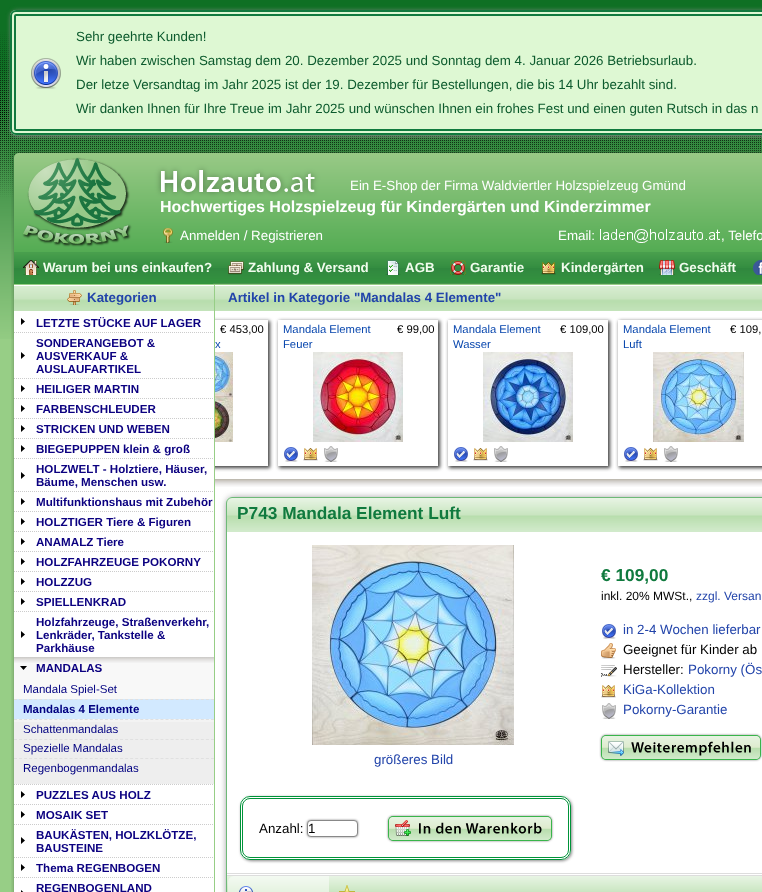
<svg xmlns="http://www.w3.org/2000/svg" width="762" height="892">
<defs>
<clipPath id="clip1"><path d="M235 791h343v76h-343zm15 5h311c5.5 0 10 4.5 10 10v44c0 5.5-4.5 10-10 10h-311c-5.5 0-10-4.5-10-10v-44c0-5.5 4.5-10 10-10z" clip-rule="evenodd"/></clipPath>
</defs>
<rect width="100%" height="100%" fill="#97ce86"/>
<image x="0" y="0" width="762" height="339" href="media/1.png"/>
<rect x="11" y="11" width="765" height="125" rx="6" fill="#888" filter="blur(2.5px)"/>
<rect x="10" y="10" width="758" height="125" rx="6" fill="#def8d3"/>
<image x="31" y="58" width="30" height="31" href="media/2.png"/>
<rect x="11" y="11" width="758" height="123" rx="5" fill="none" stroke="#107a3e" stroke-width="2"/>
<rect x="15" y="15" width="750" height="115" rx="1" fill="none" stroke="#107a3e" stroke-width="2"/>
<text x="76" y="41" style="font-family:Liberation Sans;font-size:13.33px;fill:#0c5a2d">Sehr geehrte Kunden!</text>
<text x="76" y="65" style="font-family:Liberation Sans;font-size:13.33px;fill:#0c5a2d">Wir haben zwischen Samstag dem 20. Dezember 2025 und Sonntag dem 4. Januar 2026 Betriebsurlaub.</text>
<text x="76" y="89" style="font-family:Liberation Sans;font-size:13.33px;fill:#0c5a2d">Der letze Versandtag im Jahr 2025 ist der 19. Dezember für Bestellungen, die bis 14 Uhr bezahlt sind.</text>
<text x="76" y="113" style="font-family:Liberation Sans;font-size:13.33px;fill:#0c5a2d">Wir danken Ihnen für Ihre Treue im Jahr 2025 und wünschen Ihnen ein frohes Fest und einen guten Rutsch in das n</text>
<image x="11" y="150" width="751" height="134" href="media/3.png"/>
<text x="350" y="190" style="font-family:Liberation Sans;font-size:13.33px;fill:#fff">Ein E-Shop der Firma Waldviertler Holzspielzeug Gmünd</text>
<text x="160" y="212" style="font-family:Liberation Sans;font-size:16px;font-weight:bold;fill:#fff">Hochwertiges Holzspielzeug für Kindergärten und Kinderzimmer</text>
<image x="163" y="228" width="10" height="15" href="media/4.png"/>
<text x="180" y="240" style="font-family:Liberation Sans;font-size:13.33px;fill:#fff">Anmelden / Registrieren</text>
<text x="558" y="240" style="font-family:Liberation Sans;font-size:13.33px;fill:#fff">Email:</text>
<image x="600" y="229" width="120" height="14" href="media/5.png"/>
<text x="721" y="240" style="font-family:Liberation Sans;font-size:13.33px;fill:#fff">, Telefo</text>
<image x="23" y="260" width="16" height="15" href="media/6.png"/>
<text x="43" y="272" style="font-family:Liberation Sans;font-size:13.33px;font-weight:bold;fill:#f1fced">Warum bei uns einkaufen?</text>
<image x="228" y="261" width="16" height="14" href="media/7.png"/>
<text x="248" y="272" style="font-family:Liberation Sans;font-size:13.33px;font-weight:bold;fill:#f1fced">Zahlung &amp; Versand</text>
<image x="385" y="260" width="16" height="15" href="media/8.png"/>
<text x="405" y="272" style="font-family:Liberation Sans;font-size:13.33px;font-weight:bold;fill:#f1fced">AGB</text>
<image x="450" y="260" width="16" height="15" href="media/9.png"/>
<text x="470" y="272" style="font-family:Liberation Sans;font-size:13.33px;font-weight:bold;fill:#f1fced">Garantie</text>
<image x="541" y="262" width="15" height="13" href="media/10.png"/>
<text x="561" y="272" style="font-family:Liberation Sans;font-size:13.33px;font-weight:bold;fill:#f1fced">Kindergärten</text>
<image x="659" y="260" width="16" height="15" href="media/11.png"/>
<text x="679" y="272" style="font-family:Liberation Sans;font-size:13.33px;font-weight:bold;fill:#f1fced">Geschäft</text>
<image x="753" y="260" width="9" height="15" href="media/12.png"/>
<image x="11" y="284" width="751" height="608" href="media/13.png"/>
<rect x="214" y="284" width="1" height="608" fill="#97ce86"/>
<rect x="14" y="284" width="200" height="1" fill="#97ce86"/>
<image x="14" y="286" width="200" height="25" href="media/14.png"/>
<image x="67" y="290" width="15" height="15" href="media/15.png"/>
<text x="87" y="302" style="font-family:Liberation Sans;font-size:13.33px;font-weight:bold;fill:#24a">Kategorien</text>
<image x="21" y="318" width="4" height="7" href="media/16.png"/>
<text x="36" y="327" style="font-family:Liberation Sans;font-size:11.6px;font-weight:bold;fill:#0b0080">LETZTE STÜCKE AUF LAGER</text>
<path d="M14 332.5h200" fill="none" stroke="#ccc" stroke-dasharray="1 1"/>
<image x="21" y="352" width="4" height="7" href="media/16.png"/>
<text x="36" y="347" style="font-family:Liberation Sans;font-size:11.6px;font-weight:bold;fill:#0b0080">SONDERANGEBOT &amp;</text>
<text x="36" y="360" style="font-family:Liberation Sans;font-size:11.6px;font-weight:bold;fill:#0b0080">AUSVERKAUF &amp;</text>
<text x="36" y="373" style="font-family:Liberation Sans;font-size:11.6px;font-weight:bold;fill:#0b0080">AUSLAUFARTIKEL</text>
<path d="M14 378.5h200" fill="none" stroke="#ccc" stroke-dasharray="1 1"/>
<image x="21" y="385" width="4" height="7" href="media/16.png"/>
<text x="36" y="393" style="font-family:Liberation Sans;font-size:11.6px;font-weight:bold;fill:#0b0080">HEILIGER MARTIN</text>
<path d="M14 398.5h200" fill="none" stroke="#ccc" stroke-dasharray="1 1"/>
<image x="21" y="405" width="4" height="7" href="media/16.png"/>
<text x="36" y="413" style="font-family:Liberation Sans;font-size:11.6px;font-weight:bold;fill:#0b0080">FARBENSCHLEUDER</text>
<path d="M14 418.5h200" fill="none" stroke="#ccc" stroke-dasharray="1 1"/>
<image x="21" y="425" width="4" height="7" href="media/16.png"/>
<text x="36" y="433" style="font-family:Liberation Sans;font-size:11.6px;font-weight:bold;fill:#0b0080">STRICKEN UND WEBEN</text>
<path d="M14 438.5h200" fill="none" stroke="#ccc" stroke-dasharray="1 1"/>
<image x="21" y="445" width="4" height="7" href="media/16.png"/>
<text x="36" y="453" style="font-family:Liberation Sans;font-size:11.6px;font-weight:bold;fill:#0b0080">BIEGEPUPPEN klein &amp; groß</text>
<path d="M14 458.5h200" fill="none" stroke="#ccc" stroke-dasharray="1 1"/>
<image x="21" y="472" width="4" height="7" href="media/16.png"/>
<text x="36" y="473" style="font-family:Liberation Sans;font-size:11.6px;font-weight:bold;fill:#0b0080">HOLZWELT - Holztiere, Häuser,</text>
<text x="36" y="486" style="font-family:Liberation Sans;font-size:11.6px;font-weight:bold;fill:#0b0080">Bäume, Menschen usw.</text>
<path d="M14 491.5h200" fill="none" stroke="#ccc" stroke-dasharray="1 1"/>
<image x="21" y="498" width="4" height="7" href="media/16.png"/>
<text x="36" y="506" style="font-family:Liberation Sans;font-size:11.6px;font-weight:bold;fill:#0b0080">Multifunktionshaus mit Zubehör</text>
<path d="M14 511.5h200" fill="none" stroke="#ccc" stroke-dasharray="1 1"/>
<image x="21" y="518" width="4" height="7" href="media/16.png"/>
<text x="36" y="526" style="font-family:Liberation Sans;font-size:11.6px;font-weight:bold;fill:#0b0080">HOLZTIGER Tiere &amp; Figuren</text>
<path d="M14 531.5h200" fill="none" stroke="#ccc" stroke-dasharray="1 1"/>
<image x="21" y="538" width="4" height="7" href="media/16.png"/>
<text x="36" y="546" style="font-family:Liberation Sans;font-size:11.6px;font-weight:bold;fill:#0b0080">ANAMALZ Tiere</text>
<path d="M14 551.5h200" fill="none" stroke="#ccc" stroke-dasharray="1 1"/>
<image x="21" y="558" width="4" height="7" href="media/16.png"/>
<text x="36" y="566" style="font-family:Liberation Sans;font-size:11.6px;font-weight:bold;fill:#0b0080">HOLZFAHRZEUGE POKORNY</text>
<path d="M14 571.5h200" fill="none" stroke="#ccc" stroke-dasharray="1 1"/>
<image x="21" y="578" width="4" height="7" href="media/16.png"/>
<text x="36" y="586" style="font-family:Liberation Sans;font-size:11.6px;font-weight:bold;fill:#0b0080">HOLZZUG</text>
<path d="M14 591.5h200" fill="none" stroke="#ccc" stroke-dasharray="1 1"/>
<image x="21" y="598" width="4" height="7" href="media/16.png"/>
<text x="36" y="606" style="font-family:Liberation Sans;font-size:11.6px;font-weight:bold;fill:#0b0080">SPIELLENKRAD</text>
<path d="M14 611.5h200" fill="none" stroke="#ccc" stroke-dasharray="1 1"/>
<image x="21" y="631" width="4" height="7" href="media/16.png"/>
<text x="36" y="626" style="font-family:Liberation Sans;font-size:11.6px;font-weight:bold;fill:#0b0080">Holzfahrzeuge, Straßenverkehr,</text>
<text x="36" y="639" style="font-family:Liberation Sans;font-size:11.6px;font-weight:bold;fill:#0b0080">Lenkräder, Tankstelle &amp;</text>
<text x="36" y="652" style="font-family:Liberation Sans;font-size:11.6px;font-weight:bold;fill:#0b0080">Parkhäuse</text>
<rect x="14" y="657" width="200" height="20" fill="#f8f8f8"/>
<image x="14" y="657" width="200" height="6" href="media/17.png"/>
<path d="M14 657.5h200" fill="none" stroke="#ccc" stroke-dasharray="1 1"/>
<image x="20" y="666" width="7" height="4" href="media/18.png"/>
<text x="36" y="672" style="font-family:Liberation Sans;font-size:11.6px;font-weight:bold;fill:#0b0080">MANDALAS</text>
<rect x="14" y="722" width="200" height="62" fill="#eee"/>
<image x="14" y="677" width="200" height="45" href="media/19.png"/>
<text x="23" y="693" style="font-family:Liberation Sans;font-size:11.5px;fill:#000080">Mandala Spiel-Set</text>
<rect x="14" y="699" width="200" height="20" fill="#d2e9ff"/>
<path d="M14 699.5h200" fill="none" stroke="#e0e0e0" stroke-dasharray="3 2.05"/>
<text x="23" y="713" style="font-family:Liberation Sans;font-size:11.5px;font-weight:bold;fill:#000080">Mandalas 4 Elemente</text>
<path d="M14 719.5h200" fill="none" stroke="#e0e0e0" stroke-dasharray="3 2.05"/>
<text x="23" y="733" style="font-family:Liberation Sans;font-size:11.5px;fill:#000080">Schattenmandalas</text>
<path d="M14 739.5h200" fill="none" stroke="#e0e0e0" stroke-dasharray="3 2.05"/>
<text x="23" y="752" style="font-family:Liberation Sans;font-size:11.5px;fill:#000080">Spezielle Mandalas</text>
<path d="M14 758.5h200" fill="none" stroke="#e0e0e0" stroke-dasharray="3 2.05"/>
<text x="23" y="772" style="font-family:Liberation Sans;font-size:11.5px;fill:#000080">Regenbogenmandalas</text>
<path d="M14 784.5h200" fill="none" stroke="#ccc" stroke-dasharray="1 1"/>
<image x="21" y="791" width="4" height="7" href="media/16.png"/>
<text x="36" y="799" style="font-family:Liberation Sans;font-size:11.6px;font-weight:bold;fill:#0b0080">PUZZLES AUS HOLZ</text>
<path d="M14 804.5h200" fill="none" stroke="#ccc" stroke-dasharray="1 1"/>
<image x="21" y="811" width="4" height="7" href="media/16.png"/>
<text x="36" y="819" style="font-family:Liberation Sans;font-size:11.6px;font-weight:bold;fill:#0b0080">MOSAIK SET</text>
<path d="M14 824.5h200" fill="none" stroke="#ccc" stroke-dasharray="1 1"/>
<image x="21" y="837" width="4" height="7" href="media/16.png"/>
<text x="36" y="839" style="font-family:Liberation Sans;font-size:11.6px;font-weight:bold;fill:#0b0080">BAUKÄSTEN, HOLZKLÖTZE,</text>
<text x="36" y="852" style="font-family:Liberation Sans;font-size:11.6px;font-weight:bold;fill:#0b0080">BAUSTEINE</text>
<path d="M14 857.5h200" fill="none" stroke="#ccc" stroke-dasharray="1 1"/>
<image x="21" y="864" width="4" height="7" href="media/16.png"/>
<text x="36" y="872" style="font-family:Liberation Sans;font-size:11.6px;font-weight:bold;fill:#0b0080">Thema REGENBOGEN</text>
<path d="M14 877.5h200" fill="none" stroke="#ccc" stroke-dasharray="1 1"/>
<image x="21" y="890" width="3" height="2" href="media/20.png"/>
<text x="36" y="892" style="font-family:Liberation Sans;font-size:11.6px;font-weight:bold;fill:#0b0080">REGENBOGENLAND</text>
<rect x="215" y="284" width="547" height="1" fill="#97ce86"/>
<image x="215" y="286" width="547" height="25" href="media/21.png"/>
<text x="228" y="302" style="font-family:Liberation Sans;font-size:13.33px;font-weight:bold;fill:#24a">Artikel in Kategorie "Mandalas 4 Elemente"</text>
<image x="215" y="317" width="59" height="155" href="media/22.png"/>
<text x="220" y="333" style="font-family:Liberation Sans;font-size:11.25px;fill:#000">€ 453,00</text>
<text x="215" y="348" style="font-family:Liberation Sans;font-size:11.25px;fill:#0645ad">x</text>
<image x="215" y="352" width="18" height="90" href="media/23.png"/>
<image x="275" y="317" width="169" height="155" href="media/24.png"/>
<text x="283" y="333" style="font-family:Liberation Sans;font-size:11.25px;fill:#0645ad">Mandala Element</text>
<text x="397" y="333" style="font-family:Liberation Sans;font-size:11.25px;fill:#000">€ 99,00</text>
<text x="283" y="348" style="font-family:Liberation Sans;font-size:11.25px;fill:#0645ad">Feuer</text>
<image x="313" y="352" width="90" height="90" href="media/25.png"/>
<image x="284" y="447" width="14" height="15" href="media/26.png"/>
<image x="303" y="448" width="15" height="13" href="media/27.png"/>
<image x="324" y="446" width="14" height="16" href="media/28.png"/>
<image x="445" y="317" width="169" height="155" href="media/24.png"/>
<text x="453" y="333" style="font-family:Liberation Sans;font-size:11.25px;fill:#0645ad">Mandala Element</text>
<text x="560" y="333" style="font-family:Liberation Sans;font-size:11.25px;fill:#000">€ 109,00</text>
<text x="453" y="348" style="font-family:Liberation Sans;font-size:11.25px;fill:#0645ad">Wasser</text>
<image x="483" y="352" width="90" height="90" href="media/29.png"/>
<image x="454" y="447" width="14" height="15" href="media/26.png"/>
<image x="473" y="448" width="15" height="13" href="media/27.png"/>
<image x="494" y="446" width="14" height="16" href="media/28.png"/>
<image x="615" y="317" width="147" height="155" href="media/30.png"/>
<text x="623" y="333" style="font-family:Liberation Sans;font-size:11.25px;fill:#0645ad">Mandala Element</text>
<text x="730" y="333" style="font-family:Liberation Sans;font-size:11.25px;fill:#000">€ 109,</text>
<text x="623" y="348" style="font-family:Liberation Sans;font-size:11.25px;fill:#0645ad">Luft</text>
<image x="653" y="352" width="91" height="90" href="media/31.png"/>
<image x="624" y="447" width="14" height="15" href="media/26.png"/>
<image x="643" y="448" width="15" height="13" href="media/27.png"/>
<image x="664" y="446" width="14" height="16" href="media/28.png"/>
<image x="215" y="479" width="547" height="8" href="media/32.png"/>
<rect x="227" y="498" width="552" height="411" rx="6" fill="#888" filter="blur(3.5px)"/>
<path d="M232 497h530c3.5 0 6 2.5 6 6v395h-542v-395c0-3.5 2.5-6 6-6z" fill="#fff"/>
<image x="226" y="498" width="536" height="34" href="media/33.png"/>
<path d="M232 497.5h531c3 0 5.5 2.5 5.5 5.5v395.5h-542v-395.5c0-3 2.5-5.5 5.5-5.5z" fill="none" stroke="#6eb978"/>
<text x="237" y="519" style="font-family:Liberation Sans;font-size:17.3px;font-weight:bold;fill:#107a3e">P743 Mandala Element Luft</text>
<text x="601" y="581" style="font-family:Liberation Sans;font-size:17.3px;font-weight:bold;fill:#107a3e">€ 109,00</text>
<text x="601" y="600" style="font-family:Liberation Sans;font-size:12px;fill:#000">inkl. 20% MWSt.,</text>
<text x="696" y="600" style="font-family:Liberation Sans;font-size:12px;fill:#24a">zzgl. Versan</text>
<image x="602" y="624" width="14" height="15" href="media/26.png"/>
<text x="623" y="634" style="font-family:Liberation Sans;font-size:13.33px;fill:#24a">in 2-4 Wochen lieferbar</text>
<image x="601" y="643" width="15" height="16" href="media/34.png"/>
<text x="623" y="654" style="font-family:Liberation Sans;font-size:13.33px;fill:#000">Geeignet für Kinder ab</text>
<image x="601" y="665" width="16" height="12" href="media/35.png"/>
<text x="623" y="674" style="font-family:Liberation Sans;font-size:13.33px;fill:#000">Hersteller:</text>
<text x="688" y="674" style="font-family:Liberation Sans;font-size:13.33px;fill:#24a">Pokorny (Ös</text>
<image x="601" y="685" width="15" height="13" href="media/27.png"/>
<text x="623" y="694" style="font-family:Liberation Sans;font-size:13.33px;fill:#24a">KiGa-Kollektion</text>
<image x="602" y="703" width="14" height="16" href="media/28.png"/>
<text x="623" y="714" style="font-family:Liberation Sans;font-size:13.33px;fill:#24a">Pokorny-Garantie</text>
<rect x="601" y="735" width="160" height="25" rx="5" fill="#888" filter="blur(1px)"/>
<image x="601" y="735" width="160" height="25" href="media/36.png"/>
<image x="312" y="545" width="202" height="200" href="media/37.png"/>
<text x="374" y="764" style="font-family:Liberation Sans;font-size:13.33px;fill:#24a">größeres Bild</text>
<g clip-path="url(#clip1)">
<rect x="241" y="797" width="331" height="64" rx="10" fill="#888" filter="blur(1.5px)"/>
</g>
<rect x="240.5" y="796.5" width="330" height="63" rx="9.5" fill="none" stroke="#009339"/>
<rect x="242.5" y="798.5" width="326" height="59" rx="7.5" fill="none" stroke="#009339"/>
<text x="259" y="833" style="font-family:Liberation Sans;font-size:13.33px;fill:#000">Anzahl:</text>
<rect x="307" y="820" width="51" height="17" rx="4" fill="#888" filter="blur(1px)"/>
<rect x="307.5" y="820.5" width="50" height="16" rx="3.5" fill="#fff" stroke="#888"/>
<text x="308" y="833" style="font-family:Liberation Sans;font-size:13.33px;fill:#000">1</text>
<rect x="388" y="816" width="164" height="25" rx="5" fill="#888" filter="blur(1px)"/>
<image x="388" y="816" width="164" height="25" href="media/38.png"/>
<image x="227" y="876" width="535" height="16" href="media/39.png"/>
<rect x="227" y="873" width="535" height="1" fill="#ddd"/>
<rect x="227" y="875" width="535" height="1" fill="#ddd"/>
<image x="228" y="876" width="101" height="16" href="media/40.png"/>
<image x="239" y="886" width="14" height="6" href="media/41.png"/>
<image x="339" y="885" width="16" height="7" href="media/42.png"/>
</svg>
